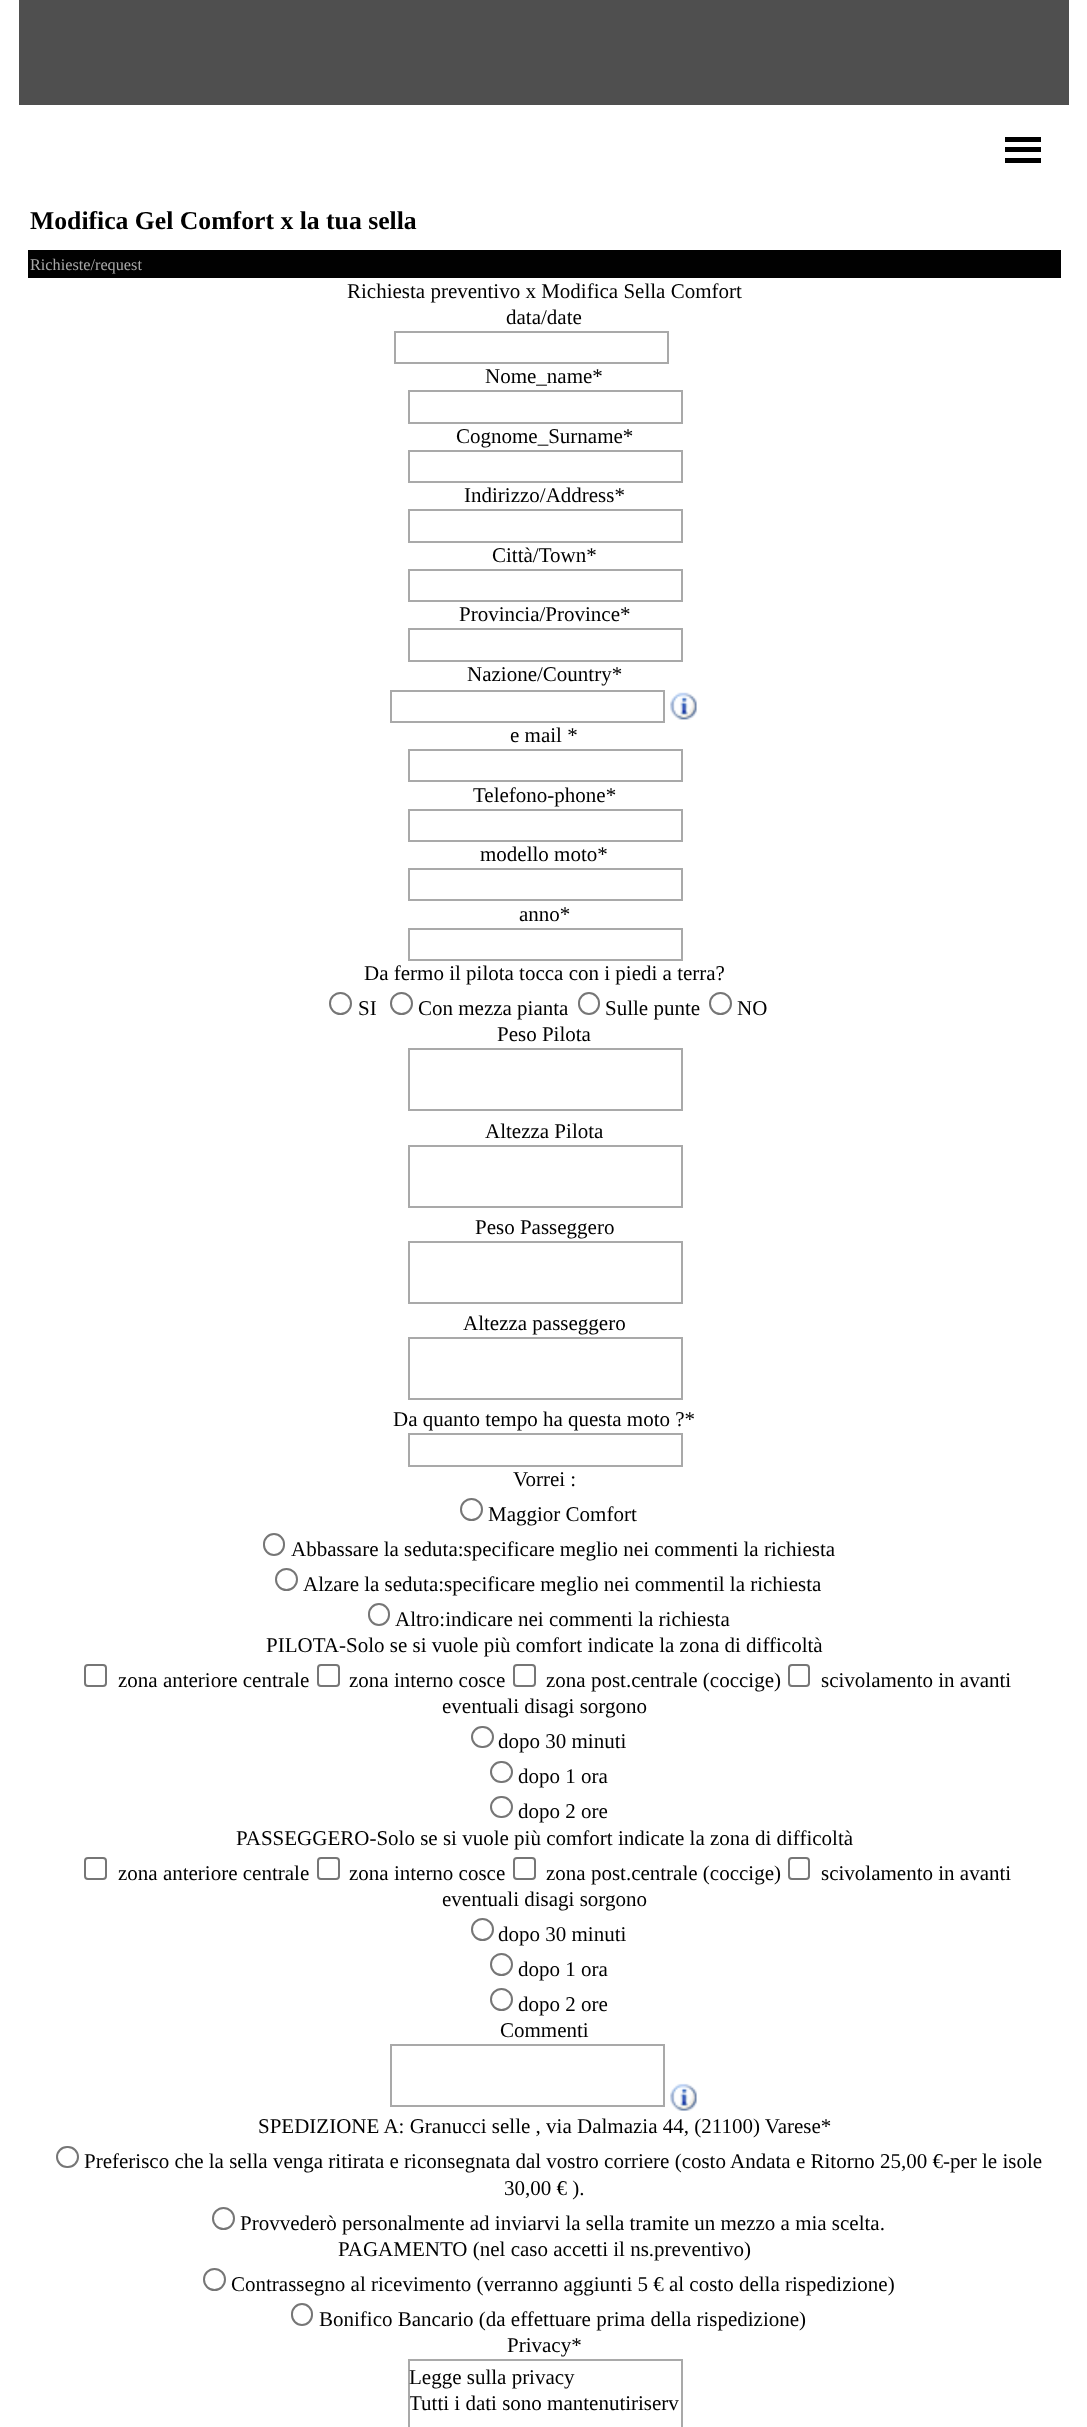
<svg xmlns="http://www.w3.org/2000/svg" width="1087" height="2427">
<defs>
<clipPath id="clip1"><rect x="410" y="2361" width="271" height="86"/></clipPath>
</defs>
<rect width="100%" height="100%" fill="#fff"/>
<rect x="19" width="1050" height="105" fill="#4f4f4f"/>
<rect x="1005" y="137" width="36" height="5" fill="#000"/>
<rect x="1005" y="147" width="36" height="5" fill="#000"/>
<rect x="1005" y="158" width="36" height="5" fill="#000"/>
<text x="30" y="229" style="font-family:Liberation Serif;font-size:25.7px;font-weight:bold;fill:#000">Modifica Gel Comfort x la tua sella</text>
<rect x="28" y="250" width="1033" height="28" fill="#010101"/>
<text x="30" y="270" style="font-family:Liberation Serif;font-size:16.25px;fill:#a9a9a9">Richieste/request</text>
<text x="347" y="298" style="font-family:Liberation Serif;font-size:21px;fill:#000">Richiesta preventivo x Modifica Sella Comfort</text>
<text x="506" y="324" style="font-family:Liberation Serif;font-size:21px;fill:#000">data/date</text>
<rect x="395" y="332" width="273" height="31" fill="none" stroke="#a9a9a9" stroke-width="2"/>
<text x="485" y="383" style="font-family:Liberation Serif;font-size:21px;fill:#000">Nome_name*</text>
<rect x="409" y="391" width="273" height="32" fill="none" stroke="#a9a9a9" stroke-width="2"/>
<text x="456" y="443" style="font-family:Liberation Serif;font-size:21px;fill:#000">Cognome_Surname*</text>
<rect x="409" y="451" width="273" height="31" fill="none" stroke="#a9a9a9" stroke-width="2"/>
<text x="464" y="502" style="font-family:Liberation Serif;font-size:21px;fill:#000">Indirizzo/Address*</text>
<rect x="409" y="510" width="273" height="32" fill="none" stroke="#a9a9a9" stroke-width="2"/>
<text x="492" y="562" style="font-family:Liberation Serif;font-size:21px;fill:#000">Città/Town*</text>
<rect x="409" y="570" width="273" height="31" fill="none" stroke="#a9a9a9" stroke-width="2"/>
<text x="459" y="621" style="font-family:Liberation Serif;font-size:21px;fill:#000">Provincia/Province*</text>
<rect x="409" y="629" width="273" height="32" fill="none" stroke="#a9a9a9" stroke-width="2"/>
<text x="467" y="681" style="font-family:Liberation Serif;font-size:21px;fill:#000">Nazione/Country*</text>
<rect x="391" y="691" width="273" height="31" fill="none" stroke="#a9a9a9" stroke-width="2"/>
<image x="670" y="692" width="27" height="28" href="media/1.png"/>
<text x="510" y="742" style="font-family:Liberation Serif;font-size:21px;fill:#000">e mail *</text>
<rect x="409" y="750" width="273" height="31" fill="none" stroke="#a9a9a9" stroke-width="2"/>
<text x="473" y="802" style="font-family:Liberation Serif;font-size:21px;fill:#000">Telefono-phone*</text>
<rect x="409" y="810" width="273" height="31" fill="none" stroke="#a9a9a9" stroke-width="2"/>
<text x="480" y="861" style="font-family:Liberation Serif;font-size:21px;fill:#000">modello moto*</text>
<rect x="409" y="869" width="273" height="31" fill="none" stroke="#a9a9a9" stroke-width="2"/>
<text x="519" y="921" style="font-family:Liberation Serif;font-size:21px;fill:#000">anno*</text>
<rect x="409" y="929" width="273" height="31" fill="none" stroke="#a9a9a9" stroke-width="2"/>
<text x="364" y="980" style="font-family:Liberation Serif;font-size:21px;fill:#000">Da fermo il pilota tocca con i piedi a terra?</text>
<circle cx="340.5" cy="1003.5" r="10.5" fill="none" stroke="#767676" stroke-width="2"/>
<text x="358" y="1015" style="font-family:Liberation Serif;font-size:21px;fill:#000">SI</text>
<circle cx="401.5" cy="1003.5" r="10.5" fill="none" stroke="#767676" stroke-width="2"/>
<text x="418" y="1015" style="font-family:Liberation Serif;font-size:21px;fill:#000">Con mezza pianta</text>
<rect x="579" y="993" width="20" height="21" rx="10" fill="none" stroke="#767676" stroke-width="2"/>
<text x="605" y="1015" style="font-family:Liberation Serif;font-size:21px;fill:#000">Sulle punte</text>
<circle cx="720.5" cy="1003.5" r="10.5" fill="none" stroke="#767676" stroke-width="2"/>
<text x="737" y="1015" style="font-family:Liberation Serif;font-size:21px;fill:#000">NO</text>
<text x="497" y="1041" style="font-family:Liberation Serif;font-size:21px;fill:#000">Peso Pilota</text>
<rect x="409" y="1049" width="273" height="61" fill="none" stroke="#a9a9a9" stroke-width="2"/>
<text x="485" y="1138" style="font-family:Liberation Serif;font-size:21px;fill:#000">Altezza Pilota</text>
<rect x="409" y="1146" width="273" height="61" fill="none" stroke="#a9a9a9" stroke-width="2"/>
<text x="475" y="1234" style="font-family:Liberation Serif;font-size:21px;fill:#000">Peso Passeggero</text>
<rect x="409" y="1242" width="273" height="61" fill="none" stroke="#a9a9a9" stroke-width="2"/>
<text x="463" y="1330" style="font-family:Liberation Serif;font-size:21px;fill:#000">Altezza passeggero</text>
<rect x="409" y="1338" width="273" height="61" fill="none" stroke="#a9a9a9" stroke-width="2"/>
<text x="393" y="1426" style="font-family:Liberation Serif;font-size:21px;fill:#000">Da quanto tempo ha questa moto ?*</text>
<rect x="409" y="1434" width="273" height="32" fill="none" stroke="#a9a9a9" stroke-width="2"/>
<text x="513" y="1486" style="font-family:Liberation Serif;font-size:21px;fill:#000">Vorrei :</text>
<circle cx="471.5" cy="1509.5" r="10.5" fill="none" stroke="#767676" stroke-width="2"/>
<text x="488" y="1521" style="font-family:Liberation Serif;font-size:21px;fill:#000">Maggior Comfort</text>
<rect x="264" y="1534" width="20" height="21" rx="10" fill="none" stroke="#767676" stroke-width="2"/>
<text x="291" y="1556" style="font-family:Liberation Serif;font-size:21px;fill:#000">Abbassare la seduta:specificare meglio nei commenti la richiesta</text>
<circle cx="286.5" cy="1579.5" r="10.5" fill="none" stroke="#767676" stroke-width="2"/>
<text x="303" y="1591" style="font-family:Liberation Serif;font-size:21px;fill:#000">Alzare la seduta:specificare meglio nei commentil la richiesta</text>
<rect x="369" y="1604" width="20" height="21" rx="10" fill="none" stroke="#767676" stroke-width="2"/>
<text x="395" y="1626" style="font-family:Liberation Serif;font-size:21px;fill:#000">Altro:indicare nei commenti la richiesta</text>
<text x="266" y="1652" style="font-family:Liberation Serif;font-size:21px;fill:#000">PILOTA-Solo se si vuole più comfort indicate la zona di difficoltà</text>
<rect x="85" y="1665" width="21" height="21" rx="3" fill="none" stroke="#767676" stroke-width="2"/>
<text x="118" y="1687" style="font-family:Liberation Serif;font-size:21px;fill:#000">zona anteriore centrale</text>
<rect x="318" y="1665" width="21" height="21" rx="3" fill="none" stroke="#767676" stroke-width="2"/>
<text x="349" y="1687" style="font-family:Liberation Serif;font-size:21px;fill:#000">zona interno cosce</text>
<rect x="514" y="1665" width="21" height="21" rx="3" fill="none" stroke="#767676" stroke-width="2"/>
<text x="546" y="1687" style="font-family:Liberation Serif;font-size:21px;fill:#000">zona post.centrale (coccige)</text>
<rect x="789" y="1665" width="20" height="21" rx="3" fill="none" stroke="#767676" stroke-width="2"/>
<text x="821" y="1687" style="font-family:Liberation Serif;font-size:21px;fill:#000">scivolamento in avanti</text>
<text x="442" y="1713" style="font-family:Liberation Serif;font-size:21px;fill:#000">eventuali disagi sorgono</text>
<rect x="472" y="1727" width="21" height="20" rx="10" fill="none" stroke="#767676" stroke-width="2"/>
<text x="498" y="1748" style="font-family:Liberation Serif;font-size:21px;fill:#000">dopo 30 minuti</text>
<rect x="491" y="1762" width="21" height="20" rx="10" fill="none" stroke="#767676" stroke-width="2"/>
<text x="518" y="1783" style="font-family:Liberation Serif;font-size:21px;fill:#000">dopo 1 ora</text>
<rect x="491" y="1797" width="21" height="20" rx="10" fill="none" stroke="#767676" stroke-width="2"/>
<text x="518" y="1818" style="font-family:Liberation Serif;font-size:21px;fill:#000">dopo 2 ore</text>
<text x="236" y="1845" style="font-family:Liberation Serif;font-size:21px;fill:#000">PASSEGGERO-Solo se si vuole più comfort indicate la zona di difficoltà</text>
<rect x="85" y="1858" width="21" height="21" rx="3" fill="none" stroke="#767676" stroke-width="2"/>
<text x="118" y="1880" style="font-family:Liberation Serif;font-size:21px;fill:#000">zona anteriore centrale</text>
<rect x="318" y="1858" width="21" height="21" rx="3" fill="none" stroke="#767676" stroke-width="2"/>
<text x="349" y="1880" style="font-family:Liberation Serif;font-size:21px;fill:#000">zona interno cosce</text>
<rect x="514" y="1858" width="21" height="21" rx="3" fill="none" stroke="#767676" stroke-width="2"/>
<text x="546" y="1880" style="font-family:Liberation Serif;font-size:21px;fill:#000">zona post.centrale (coccige)</text>
<rect x="789" y="1858" width="20" height="21" rx="3" fill="none" stroke="#767676" stroke-width="2"/>
<text x="821" y="1880" style="font-family:Liberation Serif;font-size:21px;fill:#000">scivolamento in avanti</text>
<text x="442" y="1906" style="font-family:Liberation Serif;font-size:21px;fill:#000">eventuali disagi sorgono</text>
<circle cx="482.5" cy="1929.5" r="10.5" fill="none" stroke="#767676" stroke-width="2"/>
<text x="498" y="1941" style="font-family:Liberation Serif;font-size:21px;fill:#000">dopo 30 minuti</text>
<circle cx="501.5" cy="1964.5" r="10.5" fill="none" stroke="#767676" stroke-width="2"/>
<text x="518" y="1976" style="font-family:Liberation Serif;font-size:21px;fill:#000">dopo 1 ora</text>
<circle cx="501.5" cy="1999.5" r="10.5" fill="none" stroke="#767676" stroke-width="2"/>
<text x="518" y="2011" style="font-family:Liberation Serif;font-size:21px;fill:#000">dopo 2 ore</text>
<text x="500" y="2037" style="font-family:Liberation Serif;font-size:21px;fill:#000">Commenti</text>
<rect x="391" y="2045" width="273" height="61" fill="none" stroke="#a9a9a9" stroke-width="2"/>
<image x="670" y="2083" width="27" height="28" href="media/2.png"/>
<text x="258" y="2133" style="font-family:Liberation Serif;font-size:21px;fill:#000">SPEDIZIONE A: Granucci selle , via Dalmazia 44, (21100) Varese*</text>
<rect x="57" y="2147" width="21" height="20" rx="10" fill="none" stroke="#767676" stroke-width="2"/>
<text x="84" y="2168" style="font-family:Liberation Serif;font-size:21px;fill:#000">Preferisco che la sella venga ritirata e riconsegnata dal vostro corriere (costo Andata e Ritorno 25,00 €-per le isole</text>
<text x="504" y="2195" style="font-family:Liberation Serif;font-size:21px;fill:#000">30,00 € ).</text>
<circle cx="223.5" cy="2218.5" r="10.5" fill="none" stroke="#767676" stroke-width="2"/>
<text x="240" y="2230" style="font-family:Liberation Serif;font-size:21px;fill:#000">Provvederò personalmente ad inviarvi la sella tramite un mezzo a mia scelta.</text>
<text x="338" y="2256" style="font-family:Liberation Serif;font-size:21px;fill:#000">PAGAMENTO (nel caso accetti il ns.preventivo)</text>
<circle cx="214.5" cy="2279.5" r="10.5" fill="none" stroke="#767676" stroke-width="2"/>
<text x="231" y="2291" style="font-family:Liberation Serif;font-size:21px;fill:#000">Contrassegno al ricevimento (verranno aggiunti 5 € al costo della rispedizione)</text>
<rect x="292" y="2304" width="20" height="21" rx="10" fill="none" stroke="#767676" stroke-width="2"/>
<text x="319" y="2326" style="font-family:Liberation Serif;font-size:21px;fill:#000">Bonifico Bancario (da effettuare prima della rispedizione)</text>
<text x="507" y="2352" style="font-family:Liberation Serif;font-size:21px;fill:#000">Privacy*</text>
<rect x="409" y="2360" width="273" height="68" fill="none" stroke="#a9a9a9" stroke-width="2"/>
<text x="409" y="2384" style="font-family:Liberation Serif;font-size:21px;fill:#000">Legge sulla privacy</text>
<g clip-path="url(#clip1)">
<text x="409" y="2410" style="font-family:Liberation Serif;font-size:21px;fill:#000">Tutti i dati sono mantenuti</text>
</g>
<text x="631" y="2410" style="font-family:Liberation Serif;font-size:21px;fill:#000">riserv</text>
</svg>
